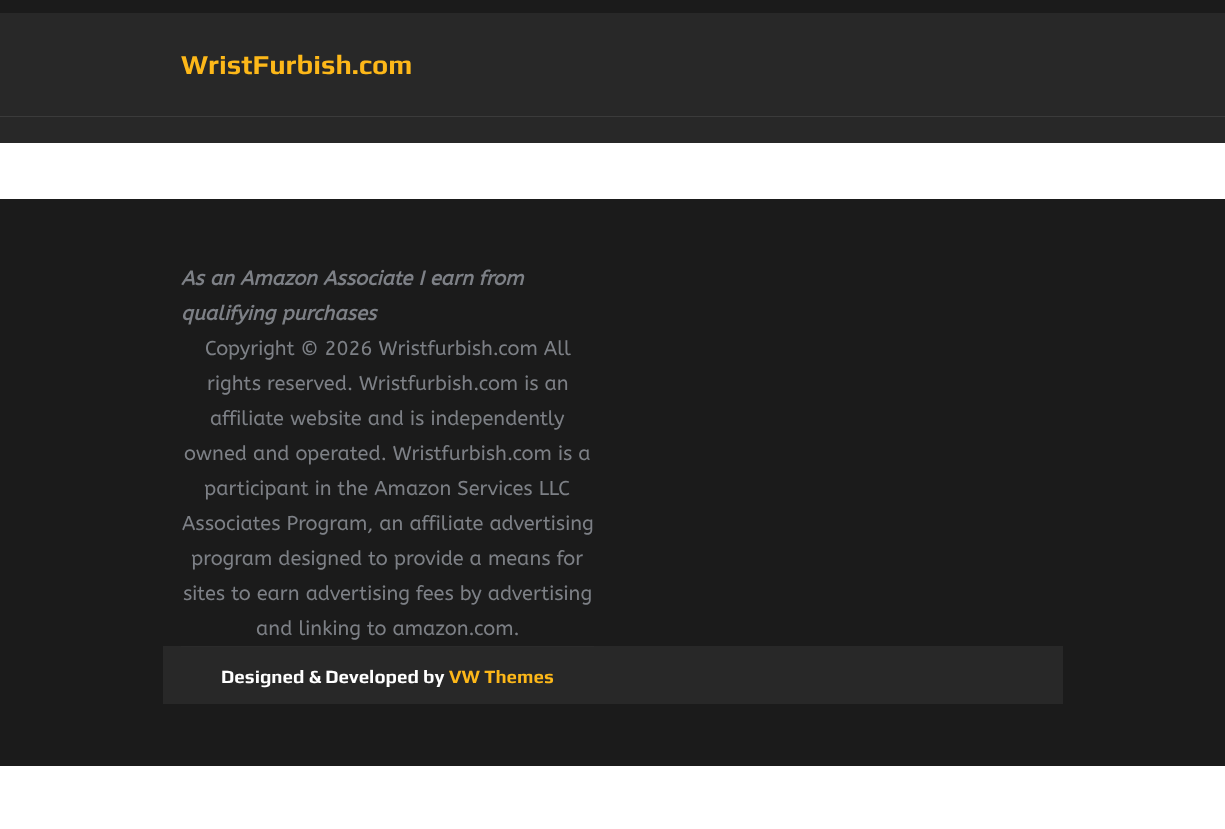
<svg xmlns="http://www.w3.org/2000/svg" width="1225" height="829">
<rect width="100%" height="100%" fill="#fff"/>
<rect width="1225" height="13" fill="#1b1b1b"/>
<rect y="13" width="1225" height="103" fill="#282828"/>
<text x="181" y="74" style="font-family:Play;font-size:27.5px;font-weight:bold;fill:#fdb819">WristFurbish.com</text>
<rect y="117" width="1225" height="26" fill="#282828"/>
<rect y="116" width="1225" height="1" fill="#3b3b3b"/>
<rect y="199" width="1225" height="567" fill="#1b1b1b"/>
<text x="181" y="285" style="font-family:ABeeZee;font-size:20px;font-weight:bold;font-style:italic;fill:#7d8086">As an Amazon Associate I earn from</text>
<text x="181" y="320" style="font-family:ABeeZee;font-size:20px;font-weight:bold;font-style:italic;fill:#7d8086">qualifying purchases</text>
<text x="205" y="355" style="font-family:ABeeZee;font-size:20px;fill:#7d8086">Copyright © 2026 Wristfurbish.com All</text>
<text x="207" y="390" style="font-family:ABeeZee;font-size:20px;fill:#7d8086">rights reserved. Wristfurbish.com is an</text>
<text x="210" y="425" style="font-family:ABeeZee;font-size:20px;fill:#7d8086">affiliate website and is independently</text>
<text x="184" y="460" style="font-family:ABeeZee;font-size:20px;fill:#7d8086">owned and operated. Wristfurbish.com is a</text>
<text x="204" y="495" style="font-family:ABeeZee;font-size:20px;fill:#7d8086">participant in the Amazon Services LLC</text>
<text x="182" y="530" style="font-family:ABeeZee;font-size:20px;fill:#7d8086">Associates Program, an affiliate advertising</text>
<text x="191" y="565" style="font-family:ABeeZee;font-size:20px;fill:#7d8086">program designed to provide a means for</text>
<text x="183" y="600" style="font-family:ABeeZee;font-size:20px;fill:#7d8086">sites to earn advertising fees by advertising</text>
<text x="256" y="635" style="font-family:ABeeZee;font-size:20px;fill:#7d8086">and linking to amazon.com.</text>
<rect x="163" y="646" width="900" height="58" fill="#282828"/>
<rect x="181" y="646" width="413" height="1" fill="#2b2b2b"/>
<text x="221" y="683" style="font-family:Play;font-size:18.75px;font-weight:bold;fill:#fff">Designed &amp; Developed by</text>
<text x="449" y="683" style="font-family:Play;font-size:18.75px;font-weight:bold;fill:#fdb819">VW Themes</text>
</svg>
